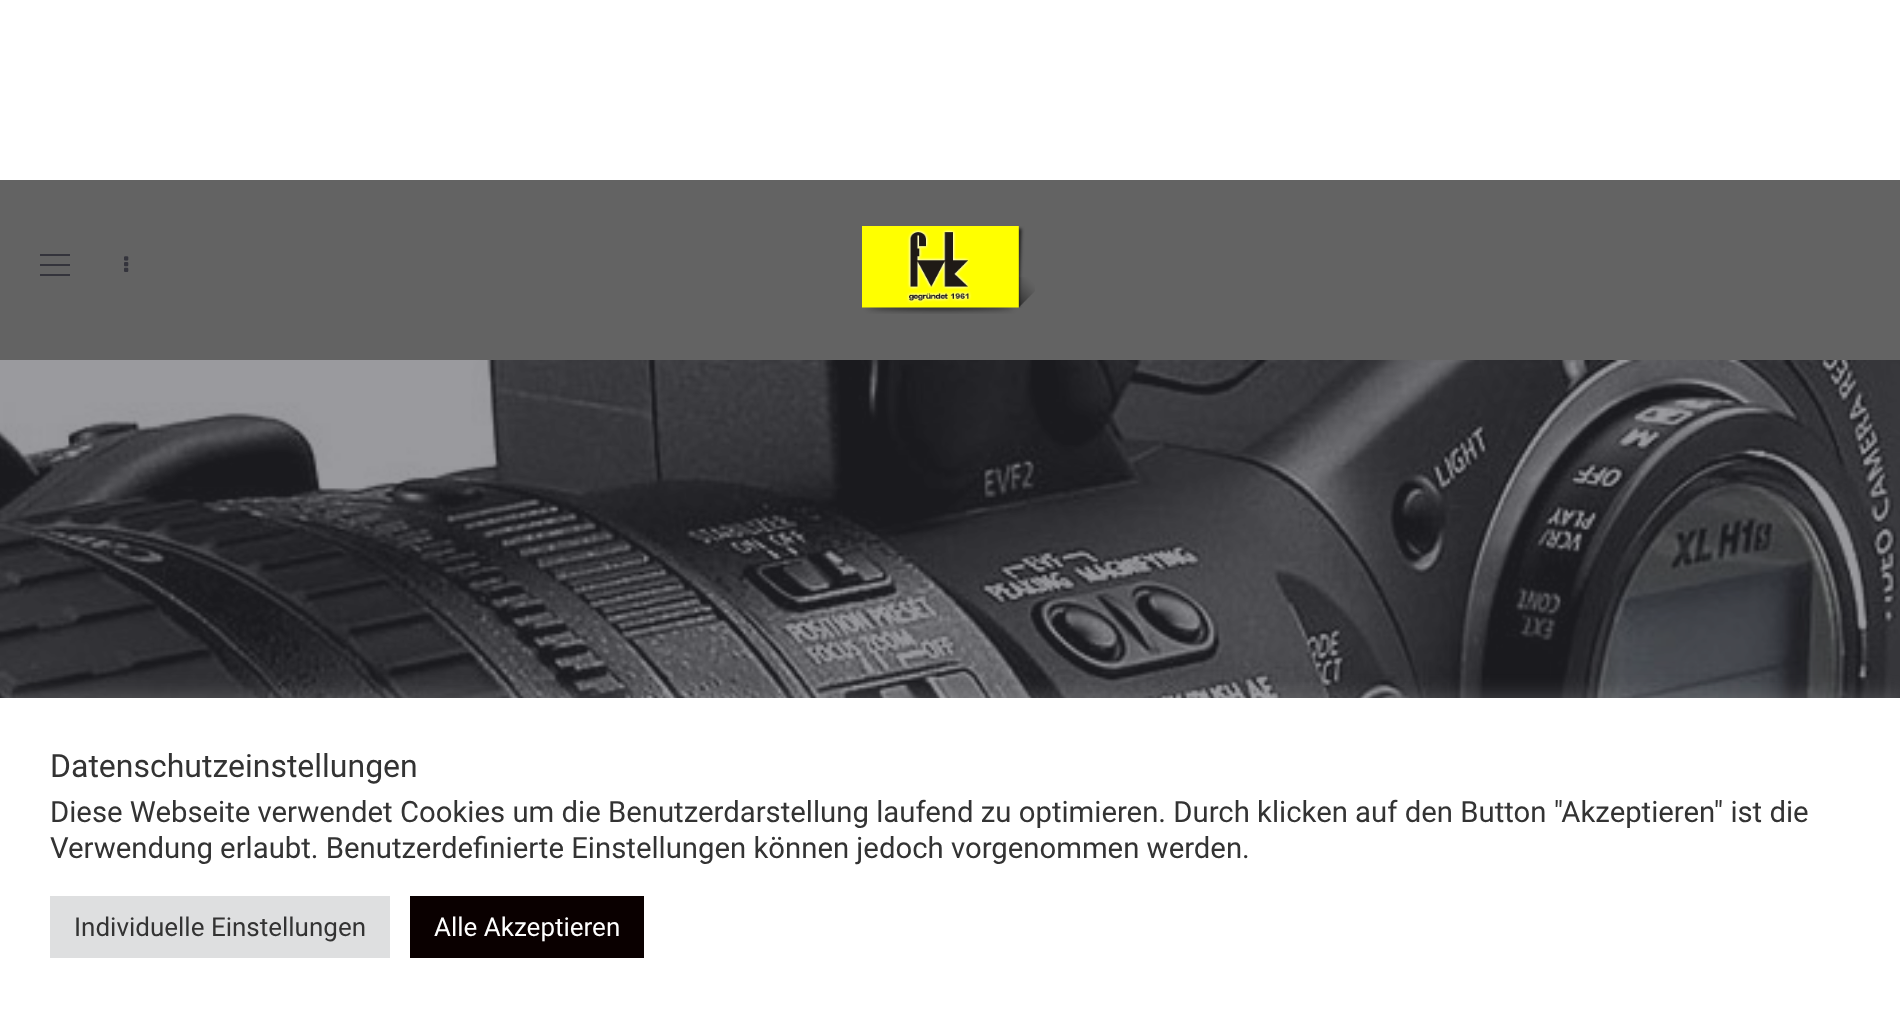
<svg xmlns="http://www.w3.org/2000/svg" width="1900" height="1018">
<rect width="100%" height="100%" fill="#fff"/>
<rect y="180" width="1900" height="180" fill="#636363"/>
<rect x="40" y="274" width="30" height="2" fill="#34343c"/>
<rect x="40" y="254" width="30" height="2" fill="#34343c"/>
<rect x="40" y="264" width="30" height="2" fill="#34343c"/>
<image x="124" y="256" width="5" height="16" href="media/1.png"/>
<image x="862" y="226" width="173" height="88" href="media/2.png"/>
<image x="0" y="360" width="1900" height="338" href="media/3.png"/>
<rect y="696" width="1900" height="320" fill="#acabab4d" filter="blur(10px)"/>
<rect y="698" width="1900" height="320" fill="#fff"/>
<text x="50" y="777" style="font-family:Roboto;font-size:32px;fill:#333">Datenschutzeinstellungen</text>
<text x="50" y="822" style="font-family:Roboto;font-size:29.33px;fill:#333">Diese Webseite verwendet Cookies um die Benutzerdarstellung laufend zu optimieren. Durch klicken auf den Button "Akzeptieren" ist die</text>
<text x="50" y="858" style="font-family:Roboto;font-size:29.33px;fill:#333">Verwendung erlaubt. Benutzerdefinierte Einstellungen können jedoch vorgenommen werden.</text>
<rect x="50" y="896" width="340" height="62" fill="#dedfe0"/>
<text x="74" y="936" style="font-family:Roboto;font-size:26px;fill:#333">Individuelle Einstellungen</text>
<rect x="410" y="896" width="234" height="62" fill="#0a0000"/>
<text x="434" y="936" style="font-family:Roboto;font-size:26px;fill:#fff">Alle Akzeptieren</text>
</svg>
